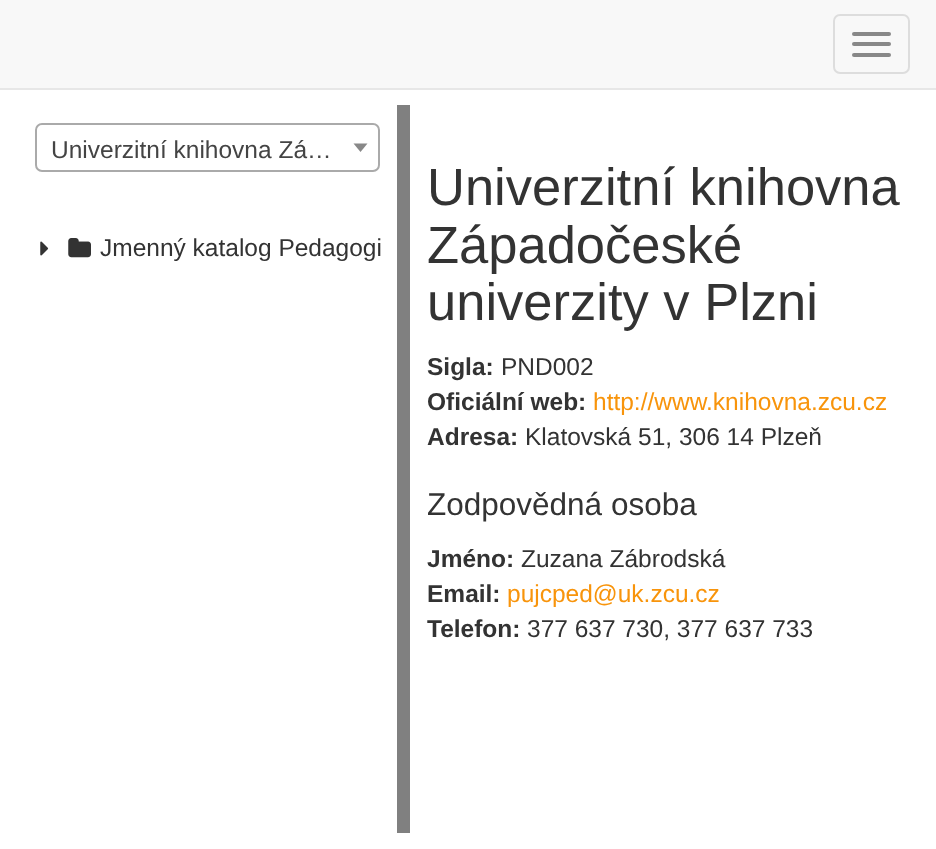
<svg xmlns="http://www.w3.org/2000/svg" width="936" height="849">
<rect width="100%" height="100%" fill="#fff"/>
<rect width="936" height="88" fill="#f8f8f8"/>
<rect y="88" width="936" height="2" fill="#e7e7e7"/>
<rect x="834" y="15" width="75" height="58" rx="6" fill="none" stroke="#ddd" stroke-width="2"/>
<rect x="852" y="32" width="39" height="4" rx="2" fill="#888"/>
<rect x="852" y="42" width="39" height="4" rx="2" fill="#888"/>
<rect x="852" y="53" width="39" height="4" rx="2" fill="#888"/>
<rect x="36" y="124" width="343" height="47" rx="6" fill="none" stroke="#aaa" stroke-width="2"/>
<text x="51" y="158" style="font-family:Liberation Sans;font-size:24.5px;fill:#444">Univerzitní knihovna Zá…</text>
<path d="M353.5 143.5h14l-7 8.5z" fill="#888"/>
<image x="40" y="241" width="9" height="15" href="media/1.png"/>
<image x="68" y="238" width="23" height="20" href="media/2.png"/>
<text x="100" y="256" style="font-family:Liberation Sans;font-size:24.5px;fill:#333">Jmenný katalog Pedagogi</text>
<rect x="397" y="105" width="13" height="728" fill="#808080"/>
<text x="427" y="205" style="font-family:Liberation Sans;font-size:52.5px;fill:#333">Univerzitní knihovna</text>
<text x="427" y="263" style="font-family:Liberation Sans;font-size:52.5px;fill:#333">Západočeské</text>
<text x="427" y="320" style="font-family:Liberation Sans;font-size:52.5px;fill:#333">univerzity v Plzni</text>
<text x="427" y="375" style="font-family:Liberation Sans;font-size:24.5px;font-weight:bold;fill:#333">Sigla:</text>
<text x="501" y="375" style="font-family:Liberation Sans;font-size:24.5px;fill:#333">PND002</text>
<text x="427" y="410" style="font-family:Liberation Sans;font-size:24.5px;font-weight:bold;fill:#333">Oficiální web:</text>
<text x="593" y="410" style="font-family:Liberation Sans;font-size:24.5px;fill:#f8940b">http://www.knihovna.zcu.cz</text>
<text x="427" y="445" style="font-family:Liberation Sans;font-size:24.5px;font-weight:bold;fill:#333">Adresa:</text>
<text x="525" y="445" style="font-family:Liberation Sans;font-size:24.5px;fill:#333">Klatovská 51, 306 14 Plzeň</text>
<text x="427" y="515" style="font-family:Liberation Sans;font-size:31.5px;fill:#333">Zodpovědná osoba</text>
<text x="427" y="567" style="font-family:Liberation Sans;font-size:24.5px;font-weight:bold;fill:#333">Jméno:</text>
<text x="521" y="567" style="font-family:Liberation Sans;font-size:24.5px;fill:#333">Zuzana Zábrodská</text>
<text x="427" y="602" style="font-family:Liberation Sans;font-size:24.5px;font-weight:bold;fill:#333">Email:</text>
<text x="507" y="602" style="font-family:Liberation Sans;font-size:24.5px;fill:#f8940b">pujcped@uk.zcu.cz</text>
<text x="427" y="637" style="font-family:Liberation Sans;font-size:24.5px;font-weight:bold;fill:#333">Telefon:</text>
<text x="527" y="637" style="font-family:Liberation Sans;font-size:24.5px;fill:#333">377 637 730, 377 637 733</text>
</svg>
